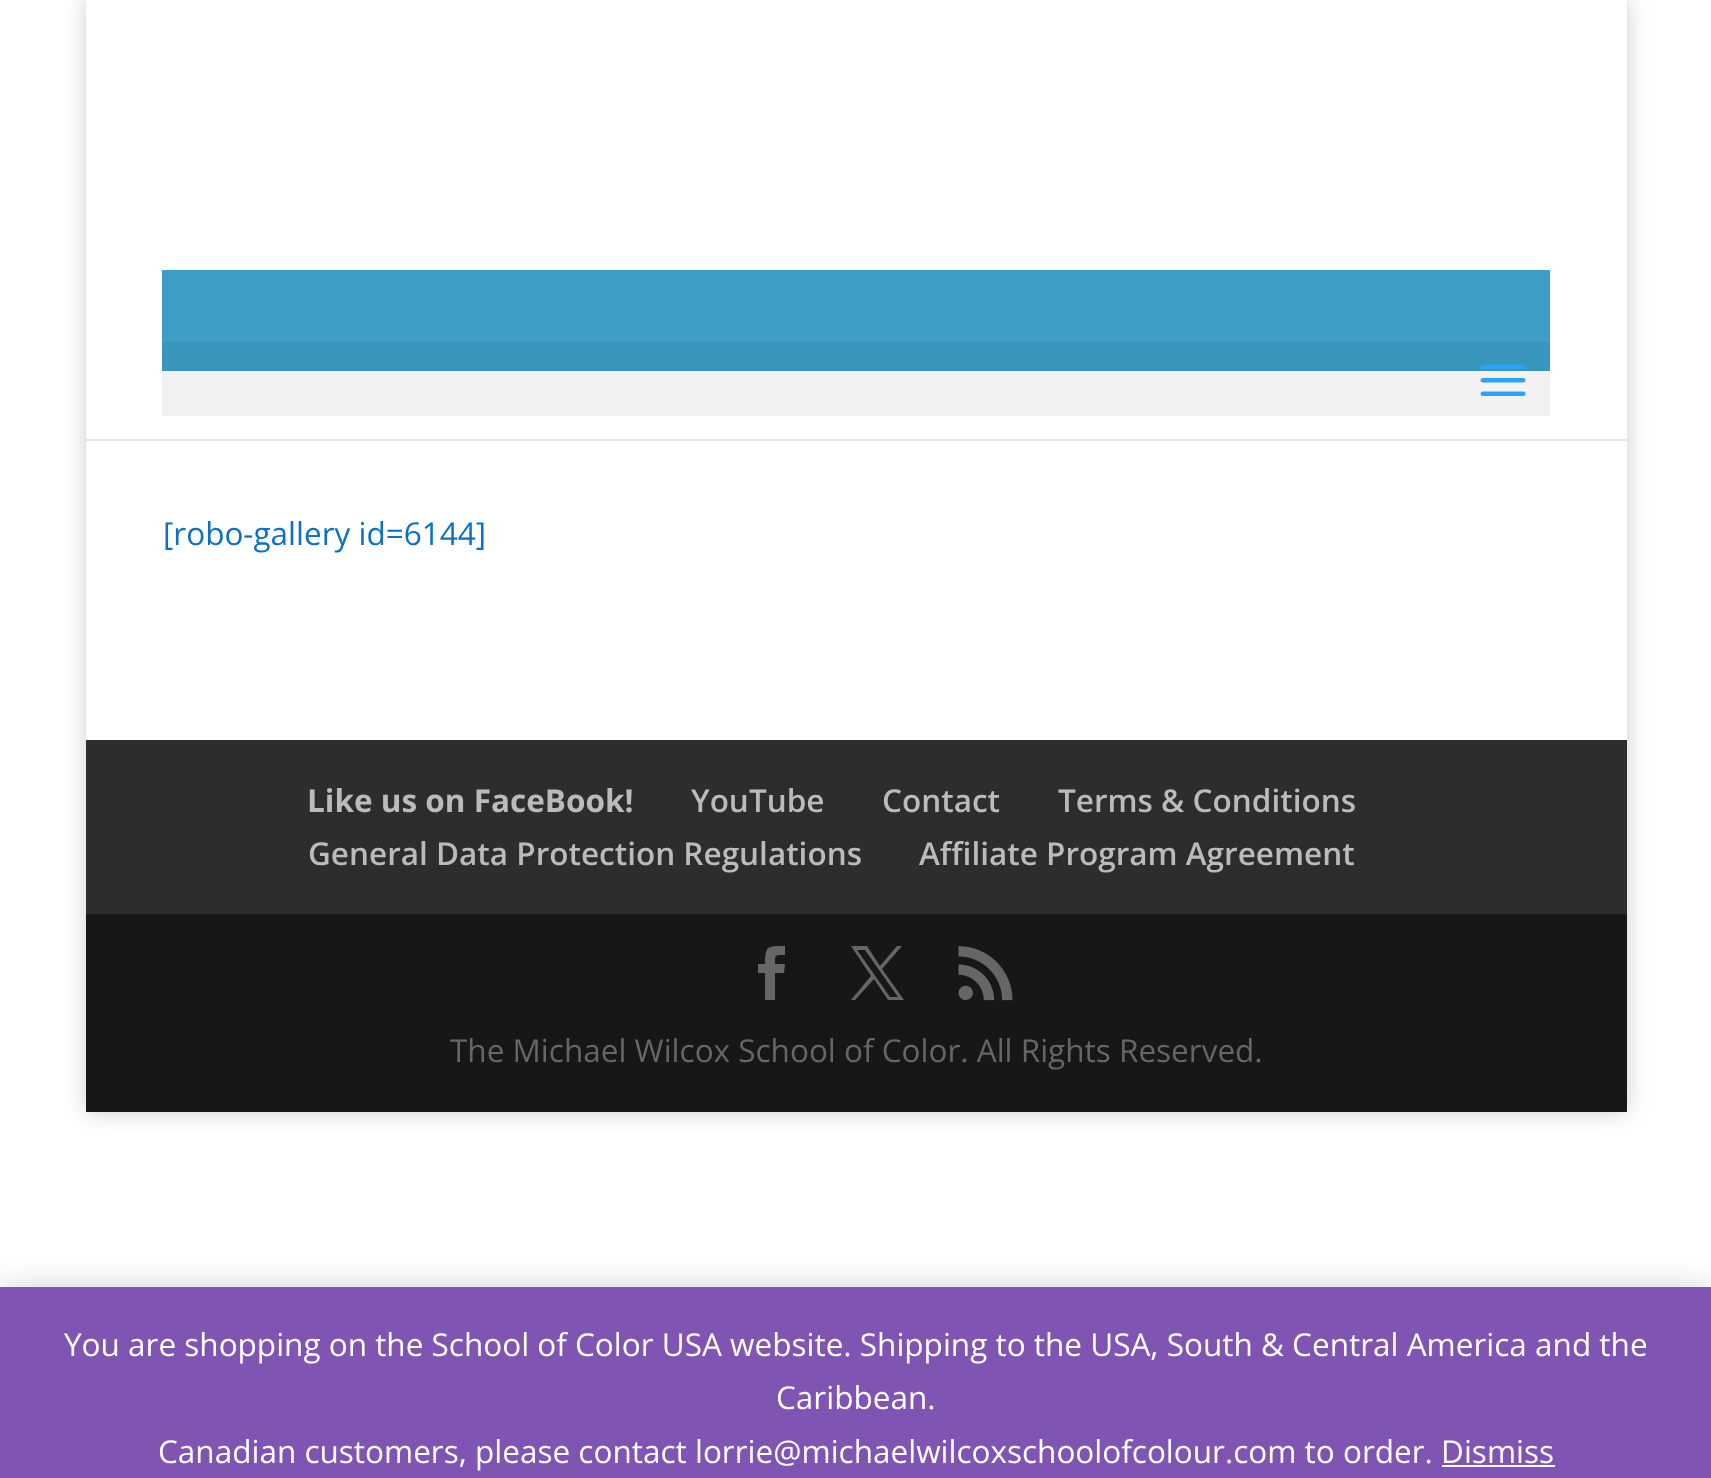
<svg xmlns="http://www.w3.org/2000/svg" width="1711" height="1478">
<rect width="100%" height="100%" fill="#fff"/>
<rect x="86" width="1541" height="1112" fill="#00000033" filter="blur(11px)"/>
<path d="M86 439v2h1541v-439v437z" fill="#e6e6e6"/>
<rect x="86" width="1541" height="439" fill="#fff"/>
<rect x="162" y="270" width="1388" height="101" fill="#3d9dc6"/>
<rect x="162" y="342" width="1388" height="74" fill="#0000000d"/>
<image x="1480" y="364" width="46" height="32" href="media/1.png"/>
<rect x="86" y="441" width="1541" height="299" fill="#fff"/>
<text x="163" y="545" style="font-family:Open Sans;font-size:31.5px;fill:#0c71c3">[robo-gallery id=6144]</text>
<rect x="86" y="740" width="1541" height="174" fill="#2d2d2d"/>
<text x="307" y="812" style="font-family:Open Sans;font-size:31.5px;font-weight:bold;fill:#bbb">Like us on FaceBook!</text>
<text x="691" y="812" style="font-family:Open Sans;font-size:31.5px;font-weight:600;fill:#bbb">YouTube</text>
<text x="882" y="812" style="font-family:Open Sans;font-size:31.5px;font-weight:600;fill:#bbb">Contact</text>
<text x="1058" y="812" style="font-family:Open Sans;font-size:31.5px;font-weight:600;fill:#bbb">Terms &amp; Conditions</text>
<text x="308" y="865" style="font-family:Open Sans;font-size:31.5px;font-weight:600;fill:#bbb">General Data Protection Regulations</text>
<text x="919" y="865" style="font-family:Open Sans;font-size:31.5px;font-weight:600;fill:#bbb">Affiliate Program Agreement</text>
<rect x="86" y="914" width="1541" height="198" fill="#171717"/>
<path d="M765 1000h10v-27h9l1-9h-10c0-10 0-9 10-9v-9c-17 0-20-1-20 18h-7v9h7z" fill="#666"/>
<path d="M851 946l20 30l-20 24h4l19-21l14 21h16l-22-31l20-23h-5l-17 20l-13-20zm6 4h8l33 47h-8z" fill="#666"/>
<image x="958" y="946" width="55" height="55" href="media/2.png"/>
<text x="450" y="1062" style="font-family:Open Sans;font-size:31.5px;fill:#666">The Michael Wilcox School of Color. All Rights Reserved.</text>
<rect y="1289" width="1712" height="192" fill="#00000033" filter="blur(16px)"/>
<rect y="1287" width="1711" height="191" fill="#7f54b3"/>
<text x="64" y="1356" style="font-family:Open Sans;font-size:31.5px;fill:#fff">You are shopping on the School of Color USA website. Shipping to the USA, South &amp; Central America and the</text>
<text x="776" y="1409" style="font-family:Open Sans;font-size:31.5px;fill:#fff">Caribbean.</text>
<text x="158" y="1463" style="font-family:Open Sans;font-size:31.5px;fill:#fff">Canadian customers, please contact lorrie@michaelwilcoxschoolofcolour.com to order. Dismiss</text>
<rect x="1442" y="1465" width="113" height="2" fill="#fff"/>
</svg>
